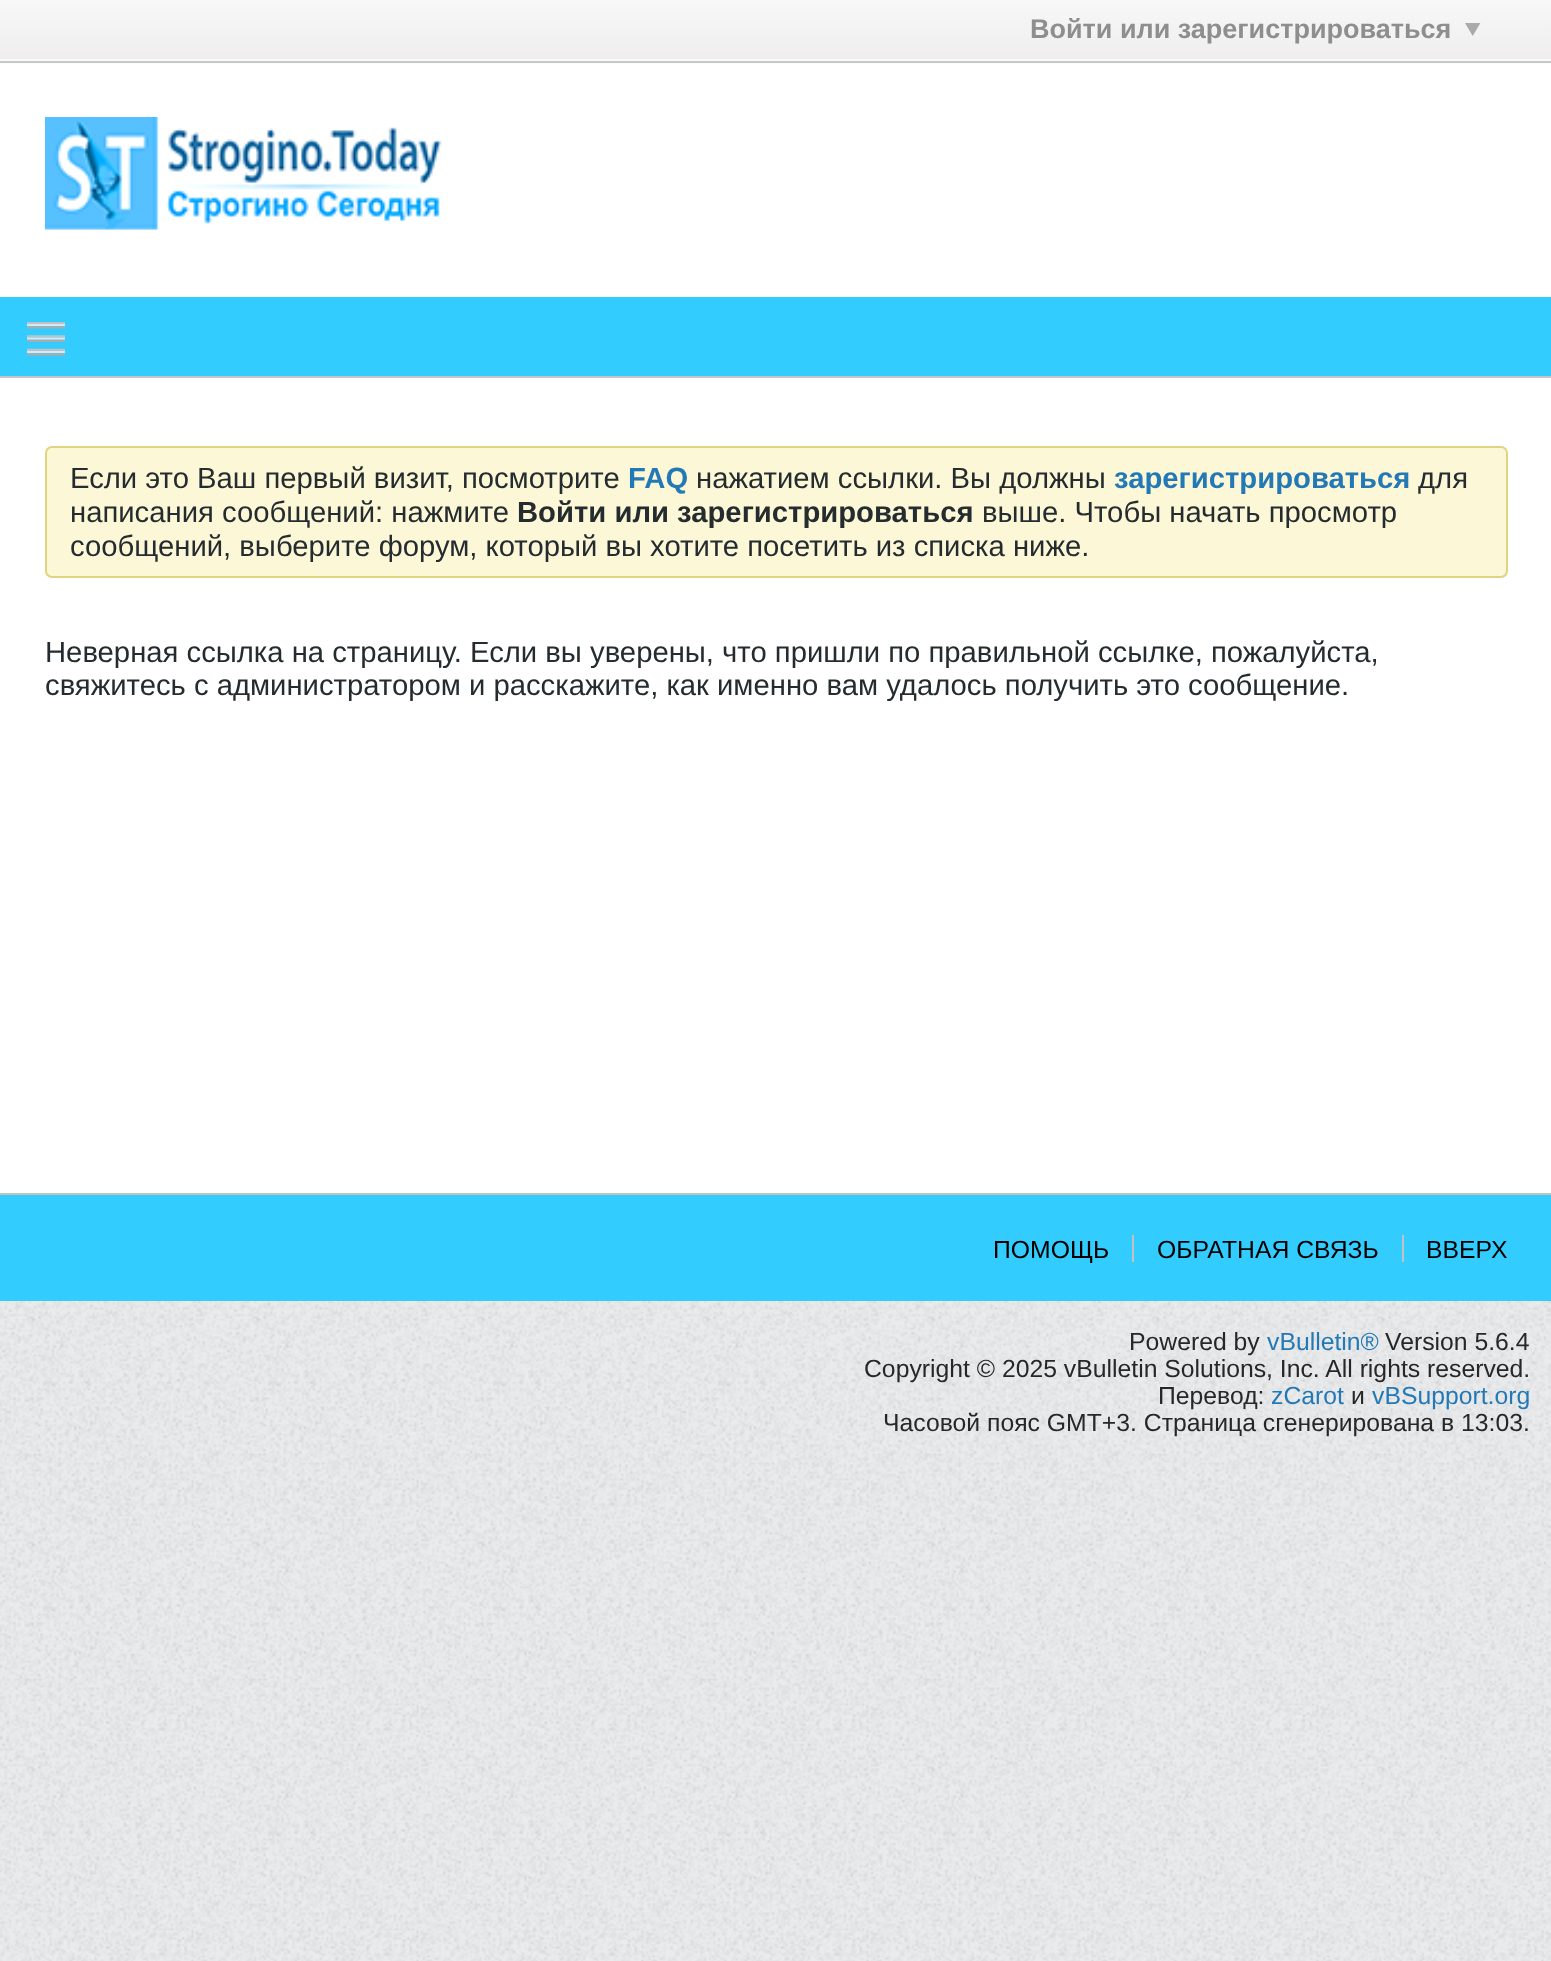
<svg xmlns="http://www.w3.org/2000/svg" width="1551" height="1961">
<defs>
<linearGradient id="g1" gradientUnits="userSpaceOnUse" x1="776" y1="0" x2="776" y2="63"><stop offset="0" stop-color="#f8f8f8"/><stop offset="1" stop-color="#efedee"/></linearGradient>
</defs>
<rect width="100%" height="100%" fill="#eaebec"/>
<image x="0" y="1301" width="1551" height="660" href="media/1.png"/>
<rect width="1551" height="59" fill="url(#g1)"/>
<text x="1030" y="38" style="font-family:Liberation Sans;font-size:27px;font-weight:bold;fill:#8e8e8e">Войти или зарегистрироваться</text>
<image x="1465" y="23" width="16" height="13" href="media/2.png"/>
<rect y="59" width="1551" height="5" fill="#fafafa"/>
<rect y="61" width="1551" height="2" fill="#c7c8c9"/>
<rect y="64" width="1551" height="233" fill="#fff"/>
<image x="45" y="117" width="397" height="113" href="media/3.png"/>
<rect y="297" width="1551" height="79" fill="#3cf"/>
<rect y="376" width="1551" height="2" fill="#c4c7c8"/>
<image x="27" y="322" width="38" height="34" href="media/4.png"/>
<rect y="378" width="1551" height="815" fill="#fff"/>
<rect x="46" y="447" width="1461" height="130" rx="6" fill="#fcf7d7" stroke="#e1d47e" stroke-width="2"/>
<text x="70" y="488" style="font-family:Liberation Sans;font-size:29.25px;fill:#252c2f">Если это Ваш первый визит, посмотрите</text>
<text x="628" y="488" style="font-family:Liberation Sans;font-size:29.25px;font-weight:bold;fill:#2379b5">FAQ</text>
<text x="696" y="488" style="font-family:Liberation Sans;font-size:29.25px;fill:#252c2f">нажатием ссылки. Вы должны</text>
<text x="1114" y="488" style="font-family:Liberation Sans;font-size:29.25px;font-weight:bold;fill:#2379b5">зарегистрироваться</text>
<text x="1418" y="488" style="font-family:Liberation Sans;font-size:29.25px;fill:#252c2f">для</text>
<text x="70" y="522" style="font-family:Liberation Sans;font-size:29.25px;fill:#252c2f">написания сообщений: нажмите</text>
<text x="517" y="522" style="font-family:Liberation Sans;font-size:29.25px;font-weight:bold;fill:#252c2f">Войти или зарегистрироваться</text>
<text x="982" y="522" style="font-family:Liberation Sans;font-size:29.25px;fill:#252c2f">выше. Чтобы начать просмотр</text>
<text x="70" y="556" style="font-family:Liberation Sans;font-size:29.25px;fill:#252c2f">сообщений, выберите форум, который вы хотите посетить из списка ниже.</text>
<text x="45" y="662" style="font-family:Liberation Sans;font-size:29.25px;fill:#252c2f">Неверная ссылка на страницу. Если вы уверены, что пришли по правильной ссылке, пожалуйста,</text>
<text x="45" y="695" style="font-family:Liberation Sans;font-size:29.25px;fill:#252c2f">свяжитесь с администратором и расскажите, как именно вам удалось получить это сообщение.</text>
<rect y="1195" width="1551" height="106" fill="#3cf"/>
<rect y="1193" width="1551" height="2" fill="#c2c2c2"/>
<text x="993" y="1258" style="font-family:Liberation Sans;font-size:24.75px;fill:#000">ПОМОЩЬ</text>
<text x="1157" y="1258" style="font-family:Liberation Sans;font-size:24.75px;fill:#000">ОБРАТНАЯ СВЯЗЬ</text>
<rect x="1132" y="1235" width="2" height="27" fill="#c2c2c2"/>
<text x="1426" y="1258" style="font-family:Liberation Sans;font-size:24.75px;fill:#000">ВВЕРХ</text>
<rect x="1402" y="1235" width="2" height="27" fill="#c2c2c2"/>
<text x="1129" y="1350" style="font-family:Liberation Sans;font-size:24.75px;fill:#272727">Powered by</text>
<text x="1267" y="1350" style="font-family:Liberation Sans;font-size:24.75px;fill:#2379b5">vBulletin®</text>
<text x="1385" y="1350" style="font-family:Liberation Sans;font-size:24.75px;fill:#272727">Version 5.6.4</text>
<text x="864" y="1377" style="font-family:Liberation Sans;font-size:24.75px;fill:#272727">Copyright © 2025 vBulletin Solutions, Inc. All rights reserved.</text>
<text x="1158" y="1404" style="font-family:Liberation Sans;font-size:24.75px;fill:#272727">Перевод:</text>
<text x="1271" y="1404" style="font-family:Liberation Sans;font-size:24.75px;fill:#2379b5">zCarot</text>
<text x="1351" y="1404" style="font-family:Liberation Sans;font-size:24.75px;fill:#272727">и</text>
<text x="1372" y="1404" style="font-family:Liberation Sans;font-size:24.75px;fill:#2379b5">vBSupport.org</text>
<text x="883" y="1431" style="font-family:Liberation Sans;font-size:24.75px;fill:#272727">Часовой пояс GMT+3. Страница сгенерирована в 13:03.</text>
</svg>
